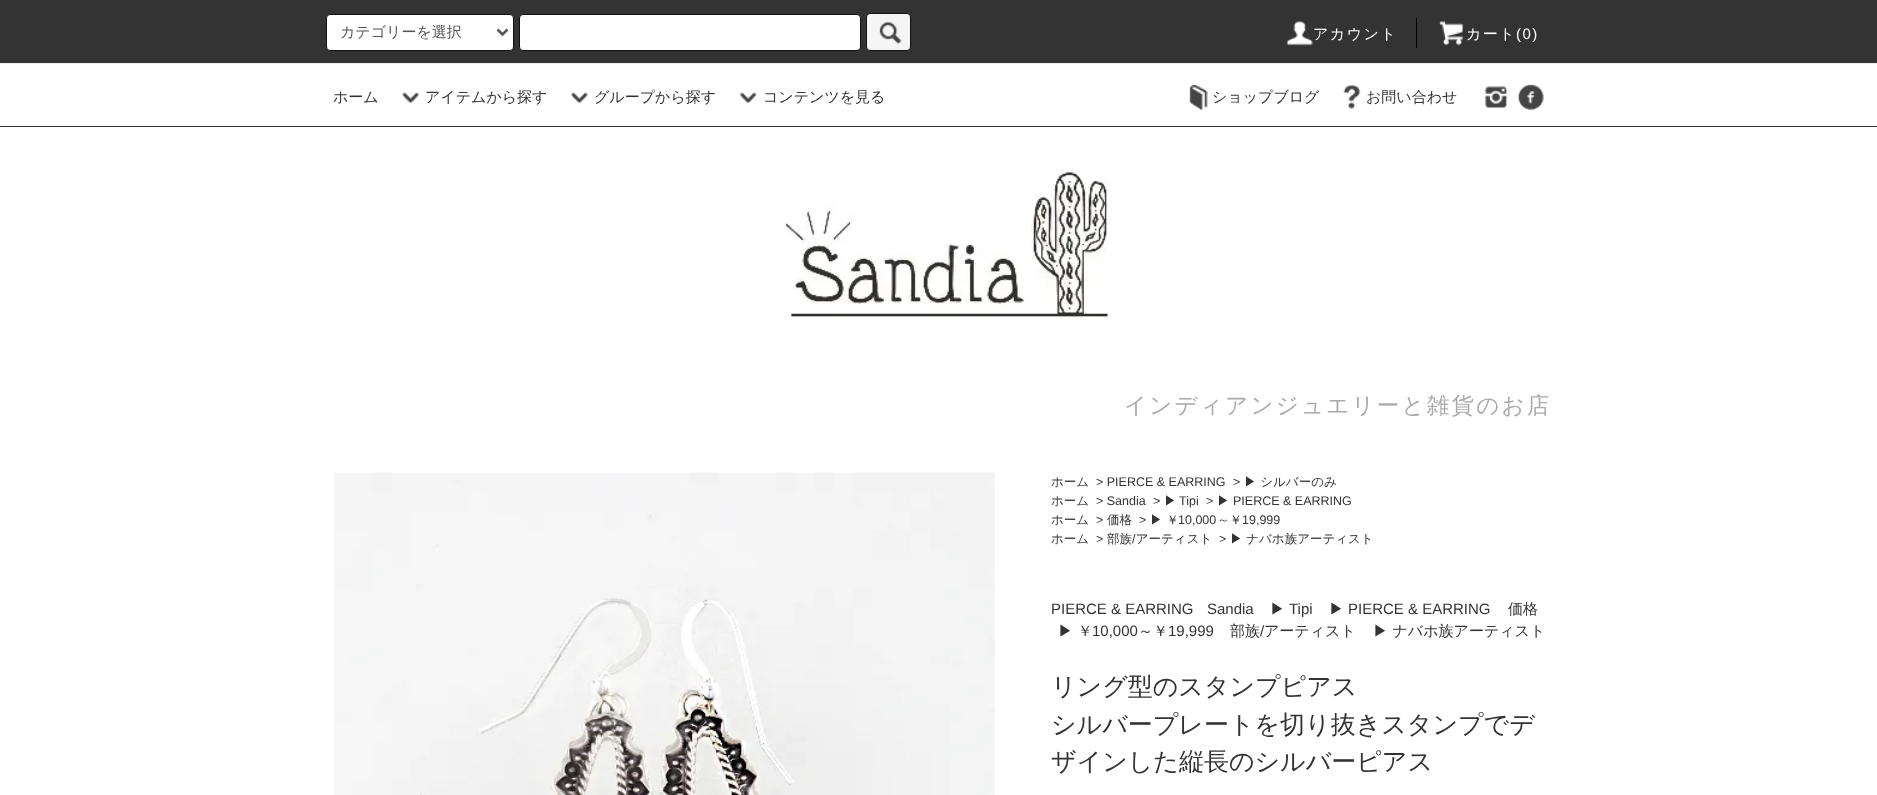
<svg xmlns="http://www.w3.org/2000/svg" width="1877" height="795">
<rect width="100%" height="100%" fill="#fff"/>
<rect width="1877" height="63" fill="#333"/>
<rect y="63" width="1877" height="1" fill="#eee"/>
<rect x="326.5" y="14.5" width="187" height="36" rx="3.5" fill="#fff" stroke="#101010"/>
<path d="M497.5 29.5l5 5l5-5" fill="none" stroke="#555" stroke-width="2.5"/>
<text x="340" y="37" style="font-family:WenQuanYi Zen Hei;font-size:15px;font-weight:500;fill:#555">カテゴリーを選択</text>
<rect x="519.5" y="14.5" width="341" height="36" rx="3.5" fill="#fff" stroke="#101010"/>
<rect x="866.5" y="13.5" width="44" height="37" rx="3.5" fill="#f5f5f5" stroke="#101010"/>
<image x="879" y="21" width="23" height="23" href="media/1.png"/>
<image x="1286" y="21" width="27" height="25" href="media/2.png"/>
<text x="1313" y="39" style="font-family:WenQuanYi Zen Hei;font-size:15px;font-weight:500;letter-spacing:1.5px;fill:#fff">アカウント</text>
<rect x="1416" y="18" width="1" height="30" fill="#000"/>
<image x="1439" y="21" width="25" height="25" href="media/3.png"/>
<text x="1466" y="39" style="font-family:WenQuanYi Zen Hei;font-size:15px;font-weight:500;letter-spacing:1.5px;fill:#fff">カート</text>
<text x="1516" y="39" style="font-family:Liberation Sans;font-size:15px;letter-spacing:1.5px;fill:#fff">(0)</text>
<rect y="126" width="1877" height="1" fill="#333"/>
<text x="333" y="102" style="font-family:WenQuanYi Zen Hei;font-size:15px;font-weight:500;fill:#333">ホーム</text>
<image x="402" y="92" width="17" height="12" href="media/4.png"/>
<text x="425" y="102" style="font-family:WenQuanYi Zen Hei;font-size:15px;font-weight:500;fill:#333">アイテムから探す</text>
<image x="571" y="92" width="17" height="12" href="media/5.png"/>
<text x="594" y="102" style="font-family:WenQuanYi Zen Hei;font-size:15px;font-weight:500;fill:#333">グループから探す</text>
<image x="739" y="92" width="18" height="12" href="media/6.png"/>
<text x="763" y="102" style="font-family:WenQuanYi Zen Hei;font-size:15px;font-weight:500;fill:#333">コンテンツを見る</text>
<image x="1189" y="84" width="19" height="27" href="media/7.png"/>
<text x="1212" y="102" style="font-family:WenQuanYi Zen Hei;font-size:15px;font-weight:500;fill:#333">ショップブログ</text>
<image x="1343" y="84" width="18" height="25" href="media/8.png"/>
<text x="1366" y="102" style="font-family:WenQuanYi Zen Hei;font-size:15px;font-weight:500;fill:#333">お問い合わせ</text>
<image x="1484" y="86" width="24" height="23" href="media/9.png"/>
<image x="1517" y="84" width="27" height="27" href="media/10.png"/>
<image x="786" y="169" width="325" height="150" href="media/11.png"/>
<text x="1124" y="413" style="font-family:WenQuanYi Zen Hei;font-size:22.5px;font-weight:500;letter-spacing:2.25px;fill:#aaa">インディアンジュエリーと雑貨のお店</text>
<image x="334" y="472" width="661" height="323" href="media/12.png"/>
<text x="1051" y="486" style="font-family:WenQuanYi Zen Hei;font-size:12.5px;font-weight:500;fill:#333">ホーム</text>
<text x="1096" y="486" style="font-family:Liberation Sans;font-size:12.5px;fill:#333">&gt; PIERCE &amp; EARRING</text>
<text x="1233" y="486" style="font-family:Liberation Sans;font-size:12.5px;fill:#333">&gt;</text>
<text x="1244" y="486" style="font-family:WenQuanYi Zen Hei;font-size:12.5px;font-weight:500;fill:#333">▶ シルバーのみ</text>
<text x="1051" y="505" style="font-family:WenQuanYi Zen Hei;font-size:12.5px;font-weight:500;fill:#333">ホーム</text>
<text x="1096" y="505" style="font-family:Liberation Sans;font-size:12.5px;fill:#333">&gt; Sandia</text>
<text x="1153" y="505" style="font-family:Liberation Sans;font-size:12.5px;fill:#333">&gt;</text>
<text x="1164" y="505" style="font-family:WenQuanYi Zen Hei;font-size:12.5px;font-weight:500;fill:#333">▶</text>
<text x="1179" y="505" style="font-family:Liberation Sans;font-size:12.5px;fill:#333">Tipi</text>
<text x="1206" y="505" style="font-family:Liberation Sans;font-size:12.5px;fill:#333">&gt;</text>
<text x="1217" y="505" style="font-family:WenQuanYi Zen Hei;font-size:12.5px;font-weight:500;fill:#333">▶</text>
<text x="1233" y="505" style="font-family:Liberation Sans;font-size:12.5px;fill:#333">PIERCE &amp; EARRING</text>
<text x="1051" y="524" style="font-family:WenQuanYi Zen Hei;font-size:12.5px;font-weight:500;fill:#333">ホーム</text>
<text x="1096" y="524" style="font-family:Liberation Sans;font-size:12.5px;fill:#333">&gt;</text>
<text x="1107" y="524" style="font-family:WenQuanYi Zen Hei;font-size:12.5px;font-weight:500;fill:#333">価格</text>
<text x="1139" y="524" style="font-family:Liberation Sans;font-size:12.5px;fill:#333">&gt;</text>
<text x="1150" y="524" style="font-family:WenQuanYi Zen Hei;font-size:12.5px;font-weight:500;fill:#333">▶ ￥</text>
<text x="1178" y="524" style="font-family:Liberation Sans;font-size:12.5px;fill:#333">10,000</text>
<text x="1217" y="524" style="font-family:WenQuanYi Zen Hei;font-size:12.5px;font-weight:500;fill:#333">～￥</text>
<text x="1242" y="524" style="font-family:Liberation Sans;font-size:12.5px;fill:#333">19,999</text>
<text x="1051" y="543" style="font-family:WenQuanYi Zen Hei;font-size:12.5px;font-weight:500;fill:#333">ホーム</text>
<text x="1107" y="543" style="font-family:WenQuanYi Zen Hei;font-size:12.5px;font-weight:500;fill:#333">部族 アーティスト</text>
<text x="1096" y="543" style="font-family:Liberation Sans;font-size:12.5px;fill:#333">&gt;</text>
<text x="1132" y="543" style="font-family:Liberation Sans;font-size:12.5px;fill:#333">/</text>
<text x="1219" y="543" style="font-family:Liberation Sans;font-size:12.5px;fill:#333">&gt;</text>
<text x="1230" y="543" style="font-family:WenQuanYi Zen Hei;font-size:12.5px;font-weight:500;fill:#333">▶ ナバホ族アーティスト</text>
<text x="1051" y="614" style="font-family:Liberation Sans;font-size:15px;fill:#333">PIERCE &amp; EARRING</text>
<text x="1207" y="614" style="font-family:Liberation Sans;font-size:15px;fill:#333">Sandia</text>
<text x="1270" y="614" style="font-family:WenQuanYi Zen Hei;font-size:15px;font-weight:500;fill:#333">▶</text>
<text x="1289" y="614" style="font-family:Liberation Sans;font-size:15px;fill:#333">Tipi</text>
<text x="1329" y="614" style="font-family:WenQuanYi Zen Hei;font-size:15px;font-weight:500;fill:#333">▶</text>
<text x="1348" y="614" style="font-family:Liberation Sans;font-size:15px;fill:#333">PIERCE &amp; EARRING</text>
<text x="1508" y="614" style="font-family:WenQuanYi Zen Hei;font-size:15px;font-weight:500;fill:#333">価格</text>
<text x="1058" y="636" style="font-family:WenQuanYi Zen Hei;font-size:15px;font-weight:500;fill:#333">▶ ￥</text>
<text x="1092" y="636" style="font-family:Liberation Sans;font-size:15px;fill:#333">10,000</text>
<text x="1138" y="636" style="font-family:WenQuanYi Zen Hei;font-size:15px;font-weight:500;fill:#333">～￥</text>
<text x="1168" y="636" style="font-family:Liberation Sans;font-size:15px;fill:#333">19,999</text>
<text x="1230" y="636" style="font-family:WenQuanYi Zen Hei;font-size:15px;font-weight:500;fill:#333">部族</text>
<text x="1260" y="636" style="font-family:Liberation Sans;font-size:15px;fill:#333">/</text>
<text x="1264" y="636" style="font-family:WenQuanYi Zen Hei;font-size:15px;font-weight:500;fill:#333">アーティスト</text>
<text x="1373" y="636" style="font-family:WenQuanYi Zen Hei;font-size:15px;font-weight:500;fill:#333">▶ ナバホ族アーティスト</text>
<text x="1051" y="695" style="font-family:WenQuanYi Zen Hei;font-size:25px;font-weight:500;fill:#333">リング型のスタンプピアス</text>
<text x="1051" y="733" style="font-family:WenQuanYi Zen Hei;font-size:25px;font-weight:500;fill:#333">シルバープレートを切り抜きスタンプでデ</text>
<text x="1051" y="770" style="font-family:WenQuanYi Zen Hei;font-size:25px;font-weight:500;fill:#333">ザインした縦長のシルバーピアス</text>
</svg>
